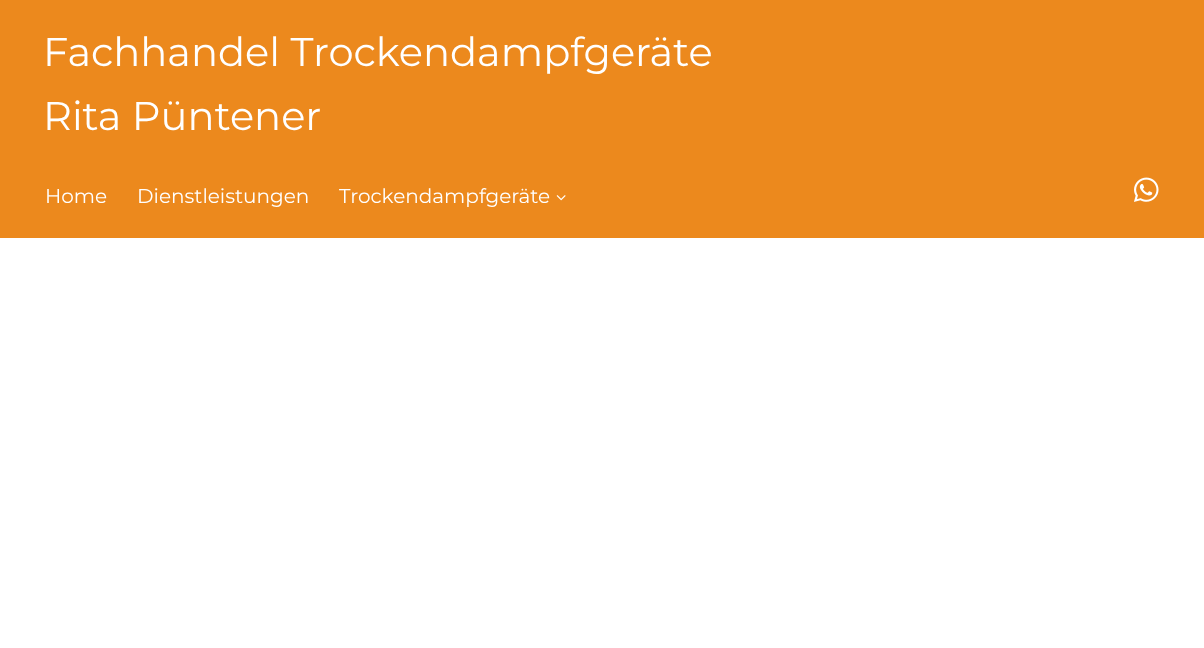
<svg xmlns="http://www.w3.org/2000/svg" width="1204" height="648">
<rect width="100%" height="100%" fill="#fff"/>
<rect width="1204" height="238" fill="#ec891d"/>
<text x="43" y="66" style="font-family:Montserrat;font-size:40px;fill:#fff">Fachhandel Trockendampfgeräte</text>
<text x="43" y="130" style="font-family:Montserrat;font-size:40px;fill:#fff">Rita Püntener</text>
<text x="45" y="203" style="font-family:Montserrat;font-size:20px;fill:#fff">Home</text>
<text x="137" y="203" style="font-family:Montserrat;font-size:20px;fill:#fff">Dienstleistungen</text>
<text x="339" y="203" style="font-family:Montserrat;font-size:20px;fill:#fff">Trockendampfgeräte</text>
<image x="556" y="195" width="10" height="6" href="media/1.png"/>
<image x="1134" y="177" width="25" height="25" href="media/2.png"/>
</svg>
